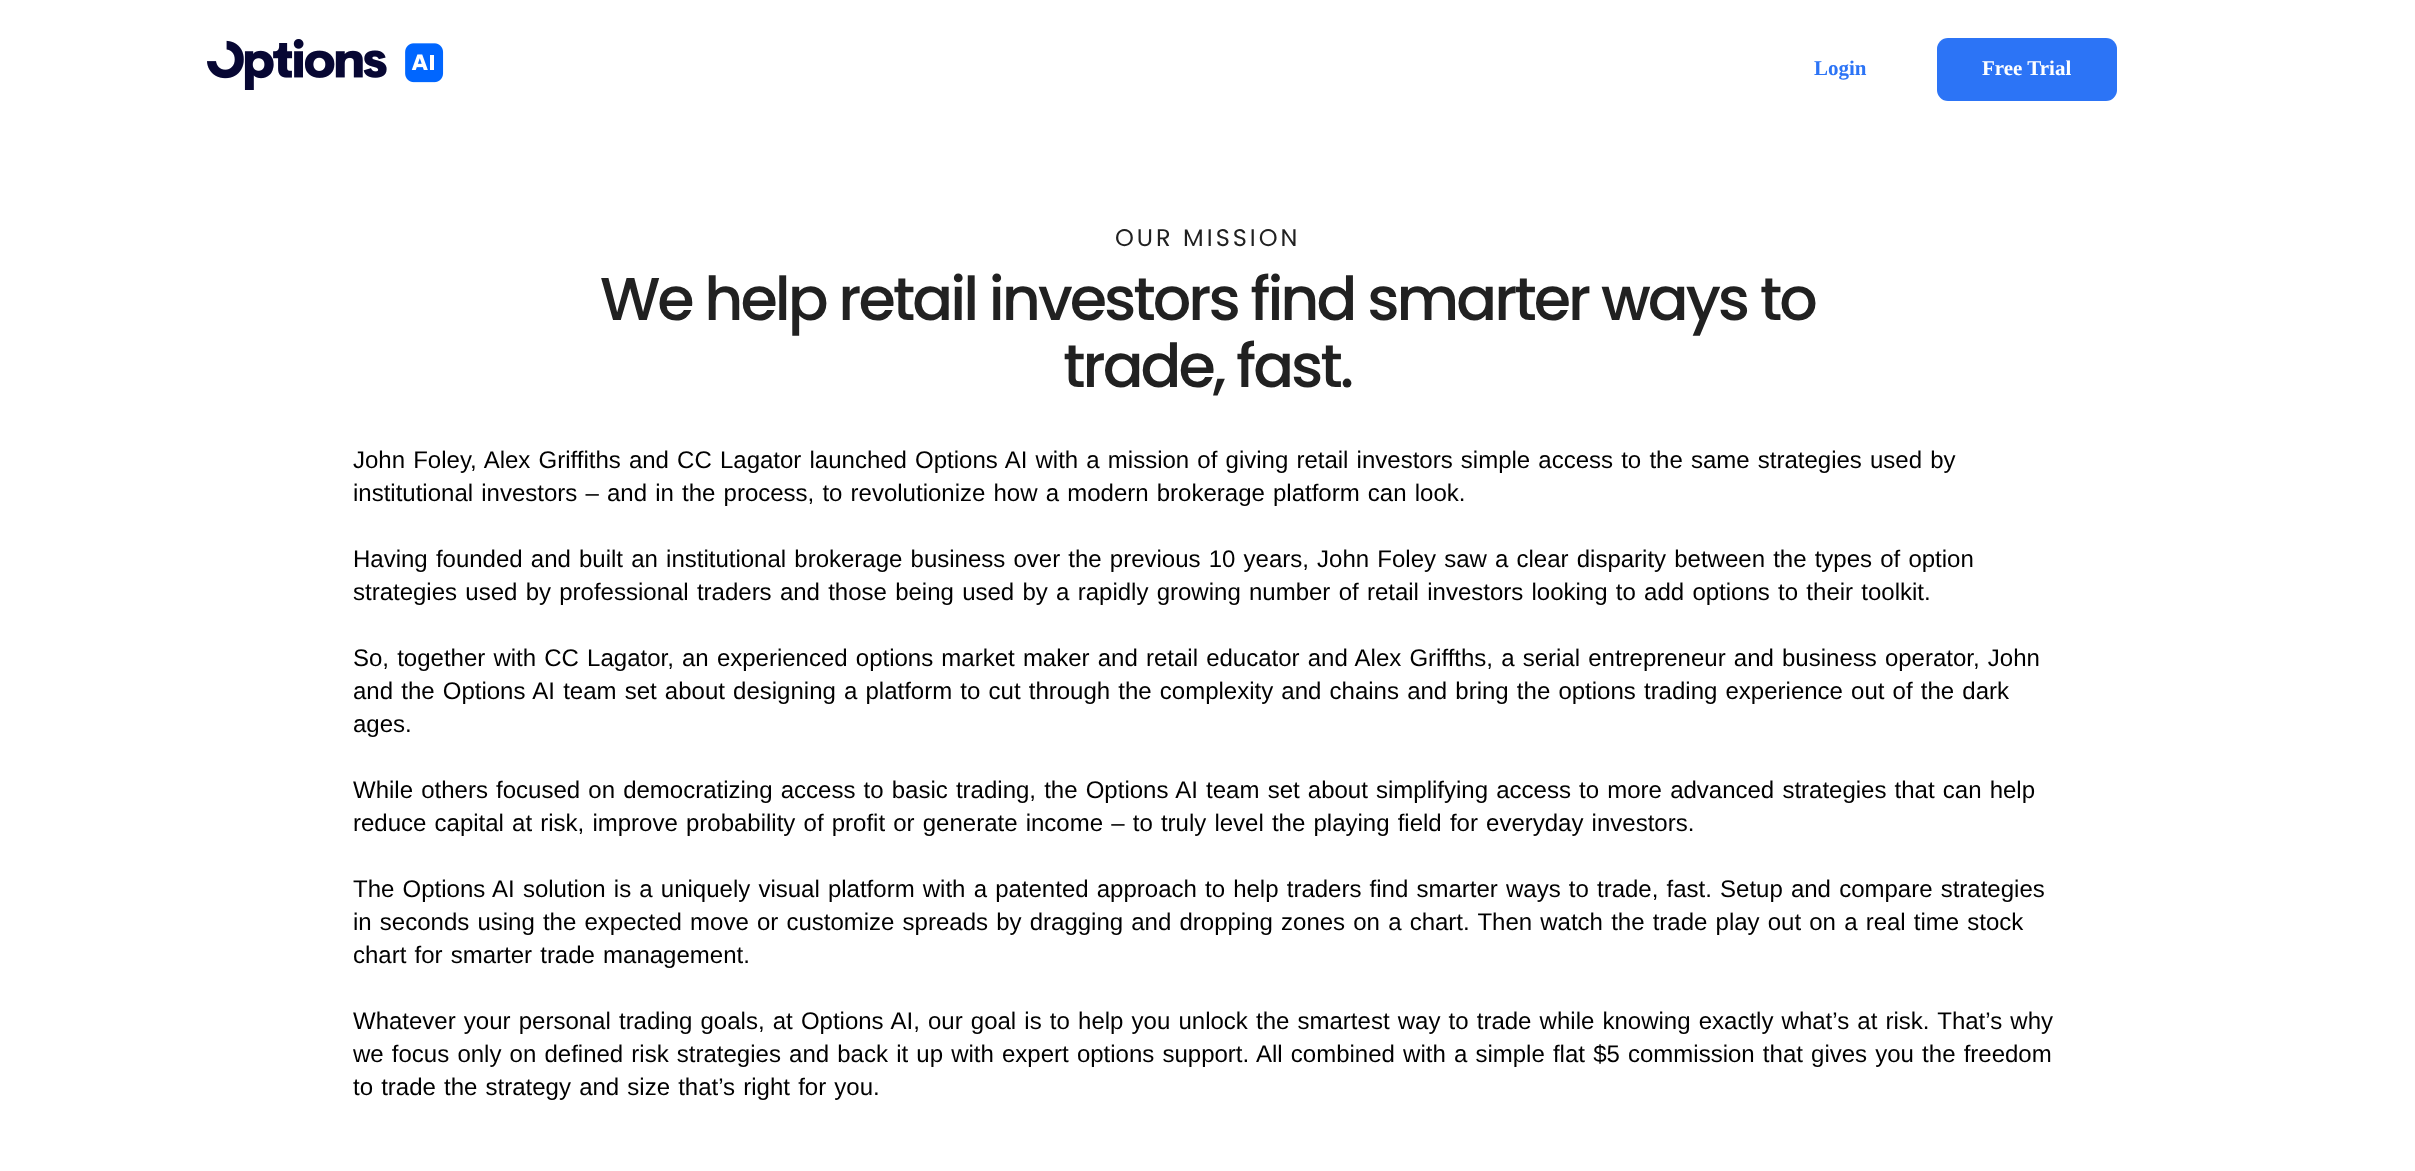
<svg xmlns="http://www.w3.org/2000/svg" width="2415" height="1171">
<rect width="100%" height="100%" fill="#fff"/>
<image x="207" y="39" width="237" height="51" href="media/1.png"/>
<text x="1814" y="75" style="font-family:Liberation Serif;font-size:21px;font-weight:bold;fill:#2c74f6">Login</text>
<rect x="1937" y="38" width="180" height="63" rx="11" fill="#2c74f6"/>
<text x="1982" y="75" style="font-family:Liberation Serif;font-size:21px;font-weight:bold;fill:#fff">Free Trial</text>
<text x="1115" y="246" style="font-family:Poppins;font-size:24px;letter-spacing:3px;fill:#212121">OUR MISSION</text>
<text x="600" y="320" style="font-family:Poppins;font-size:60.4px;font-weight:500;letter-spacing:-3px;fill:#212121">We help retail investors find smarter ways to</text>
<text x="1063" y="387" style="font-family:Poppins;font-size:60.4px;font-weight:500;letter-spacing:-3px;fill:#212121">trade, fast.</text>
<text x="353" y="468" word-spacing="1.5" style="font-family:Liberation Sans;font-size:24px;fill:#000">John Foley, Alex Griffiths and CC Lagator launched Options AI with a mission of giving retail investors simple access to the same strategies used by</text>
<text x="353" y="501" word-spacing="1.5" style="font-family:Liberation Sans;font-size:24px;fill:#000">institutional investors – and in the process, to revolutionize how a modern brokerage platform can look.</text>
<text x="353" y="567" word-spacing="1.5" style="font-family:Liberation Sans;font-size:24px;fill:#000">Having founded and built an institutional brokerage business over the previous 10 years, John Foley saw a clear disparity between the types of option</text>
<text x="353" y="600" word-spacing="1.6" style="font-family:Liberation Sans;font-size:24px;fill:#000">strategies used by professional traders and those being used by a rapidly growing number of retail investors looking to add options to their toolkit.</text>
<text x="353" y="666" word-spacing="1.5" style="font-family:Liberation Sans;font-size:24px;fill:#000">So, together with CC Lagator, an experienced options market maker and retail educator and Alex Griffths, a serial entrepreneur and business operator, John</text>
<text x="353" y="699" word-spacing="1.5" style="font-family:Liberation Sans;font-size:24px;fill:#000">and the Options AI team set about designing a platform to cut through the complexity and chains and bring the options trading experience out of the dark</text>
<text x="353" y="732" style="font-family:Liberation Sans;font-size:24px;fill:#000">ages.</text>
<text x="353" y="798" word-spacing="1.5" style="font-family:Liberation Sans;font-size:24px;fill:#000">While others focused on democratizing access to basic trading, the Options AI team set about simplifying access to more advanced strategies that can help</text>
<text x="353" y="831" word-spacing="1.5" style="font-family:Liberation Sans;font-size:24px;fill:#000">reduce capital at risk, improve probability of profit or generate income – to truly level the playing field for everyday investors.</text>
<text x="353" y="897" word-spacing="1.5" style="font-family:Liberation Sans;font-size:24px;fill:#000">The Options AI solution is a uniquely visual platform with a patented approach to help traders find smarter ways to trade, fast. Setup and compare strategies</text>
<text x="353" y="930" word-spacing="1.5" style="font-family:Liberation Sans;font-size:24px;fill:#000">in seconds using the expected move or customize spreads by dragging and dropping zones on a chart. Then watch the trade play out on a real time stock</text>
<text x="353" y="963" word-spacing="1.5" style="font-family:Liberation Sans;font-size:24px;fill:#000">chart for smarter trade management.</text>
<text x="353" y="1029" word-spacing="1.5" style="font-family:Liberation Sans;font-size:24px;fill:#000">Whatever your personal trading goals, at Options AI, our goal is to help you unlock the smartest way to trade while knowing exactly what’s at risk. That’s why</text>
<text x="353" y="1062" word-spacing="1.5" style="font-family:Liberation Sans;font-size:24px;fill:#000">we focus only on defined risk strategies and back it up with expert options support. All combined with a simple flat $5 commission that gives you the freedom</text>
<text x="353" y="1095" word-spacing="1.5" style="font-family:Liberation Sans;font-size:24px;fill:#000">to trade the strategy and size that’s right for you.</text>
</svg>
